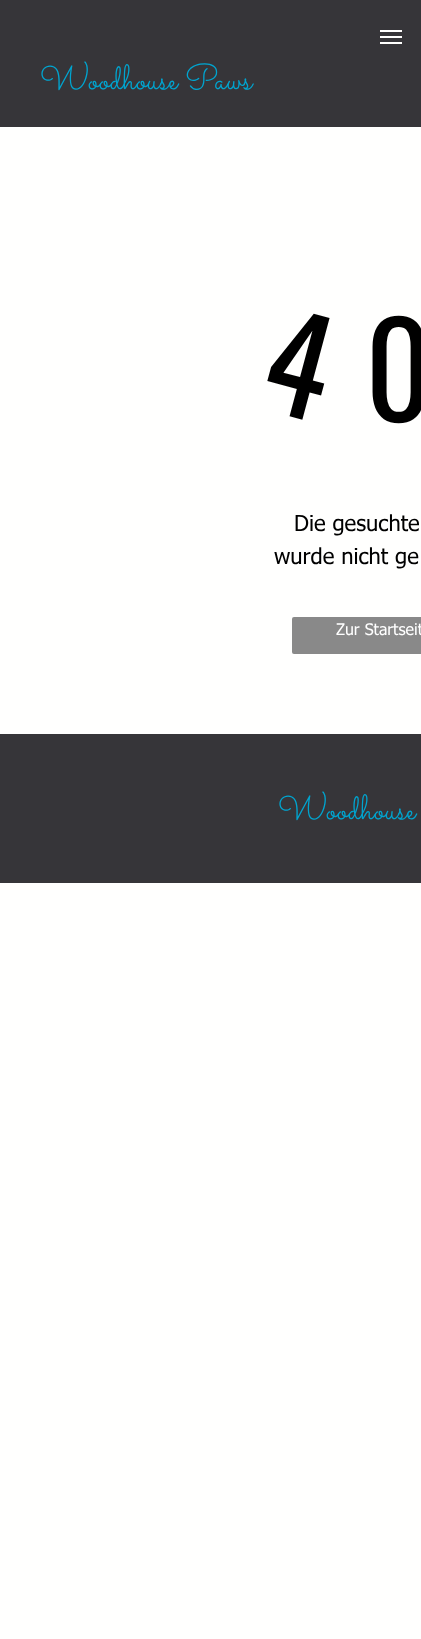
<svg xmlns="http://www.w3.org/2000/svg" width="421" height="1639">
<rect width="100%" height="100%" fill="#fffffe"/>
<rect width="421" height="127" fill="#363539"/>
<rect x="380" y="30" width="22" height="2" fill="#fffffe"/>
<rect x="380" y="36" width="22" height="2" fill="#fffffe"/>
<rect x="380" y="42" width="22" height="2" fill="#fffffe"/>
<text x="40" y="89" style="font-family:Sacramento;font-size:35px;fill:#00a4cf">Woodhouse Paws</text>
<text x="255" y="407" transform="rotate(15 255 407)" style="font-family:Oswald;font-size:130px;fill:#000">4</text>
<text x="365" y="422" style="font-family:Oswald;font-size:130px;fill:#000">0</text>
<text x="294" y="531" style="font-family:Tahoma;font-size:22px;fill:#000">Die gesuchte</text>
<text x="274" y="564" style="font-family:Tahoma;font-size:22px;fill:#000">wurde nicht ge</text>
<rect x="292" y="617" width="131" height="37" rx="2" fill="#898989"/>
<text x="336" y="635" style="font-family:Tahoma;font-size:16px;fill:#fff">Zur Startseit</text>
<rect y="734" width="421" height="149" fill="#363539"/>
<text x="278" y="819" style="font-family:Sacramento;font-size:35px;fill:#00a4cf">Woodhouse</text>
</svg>
